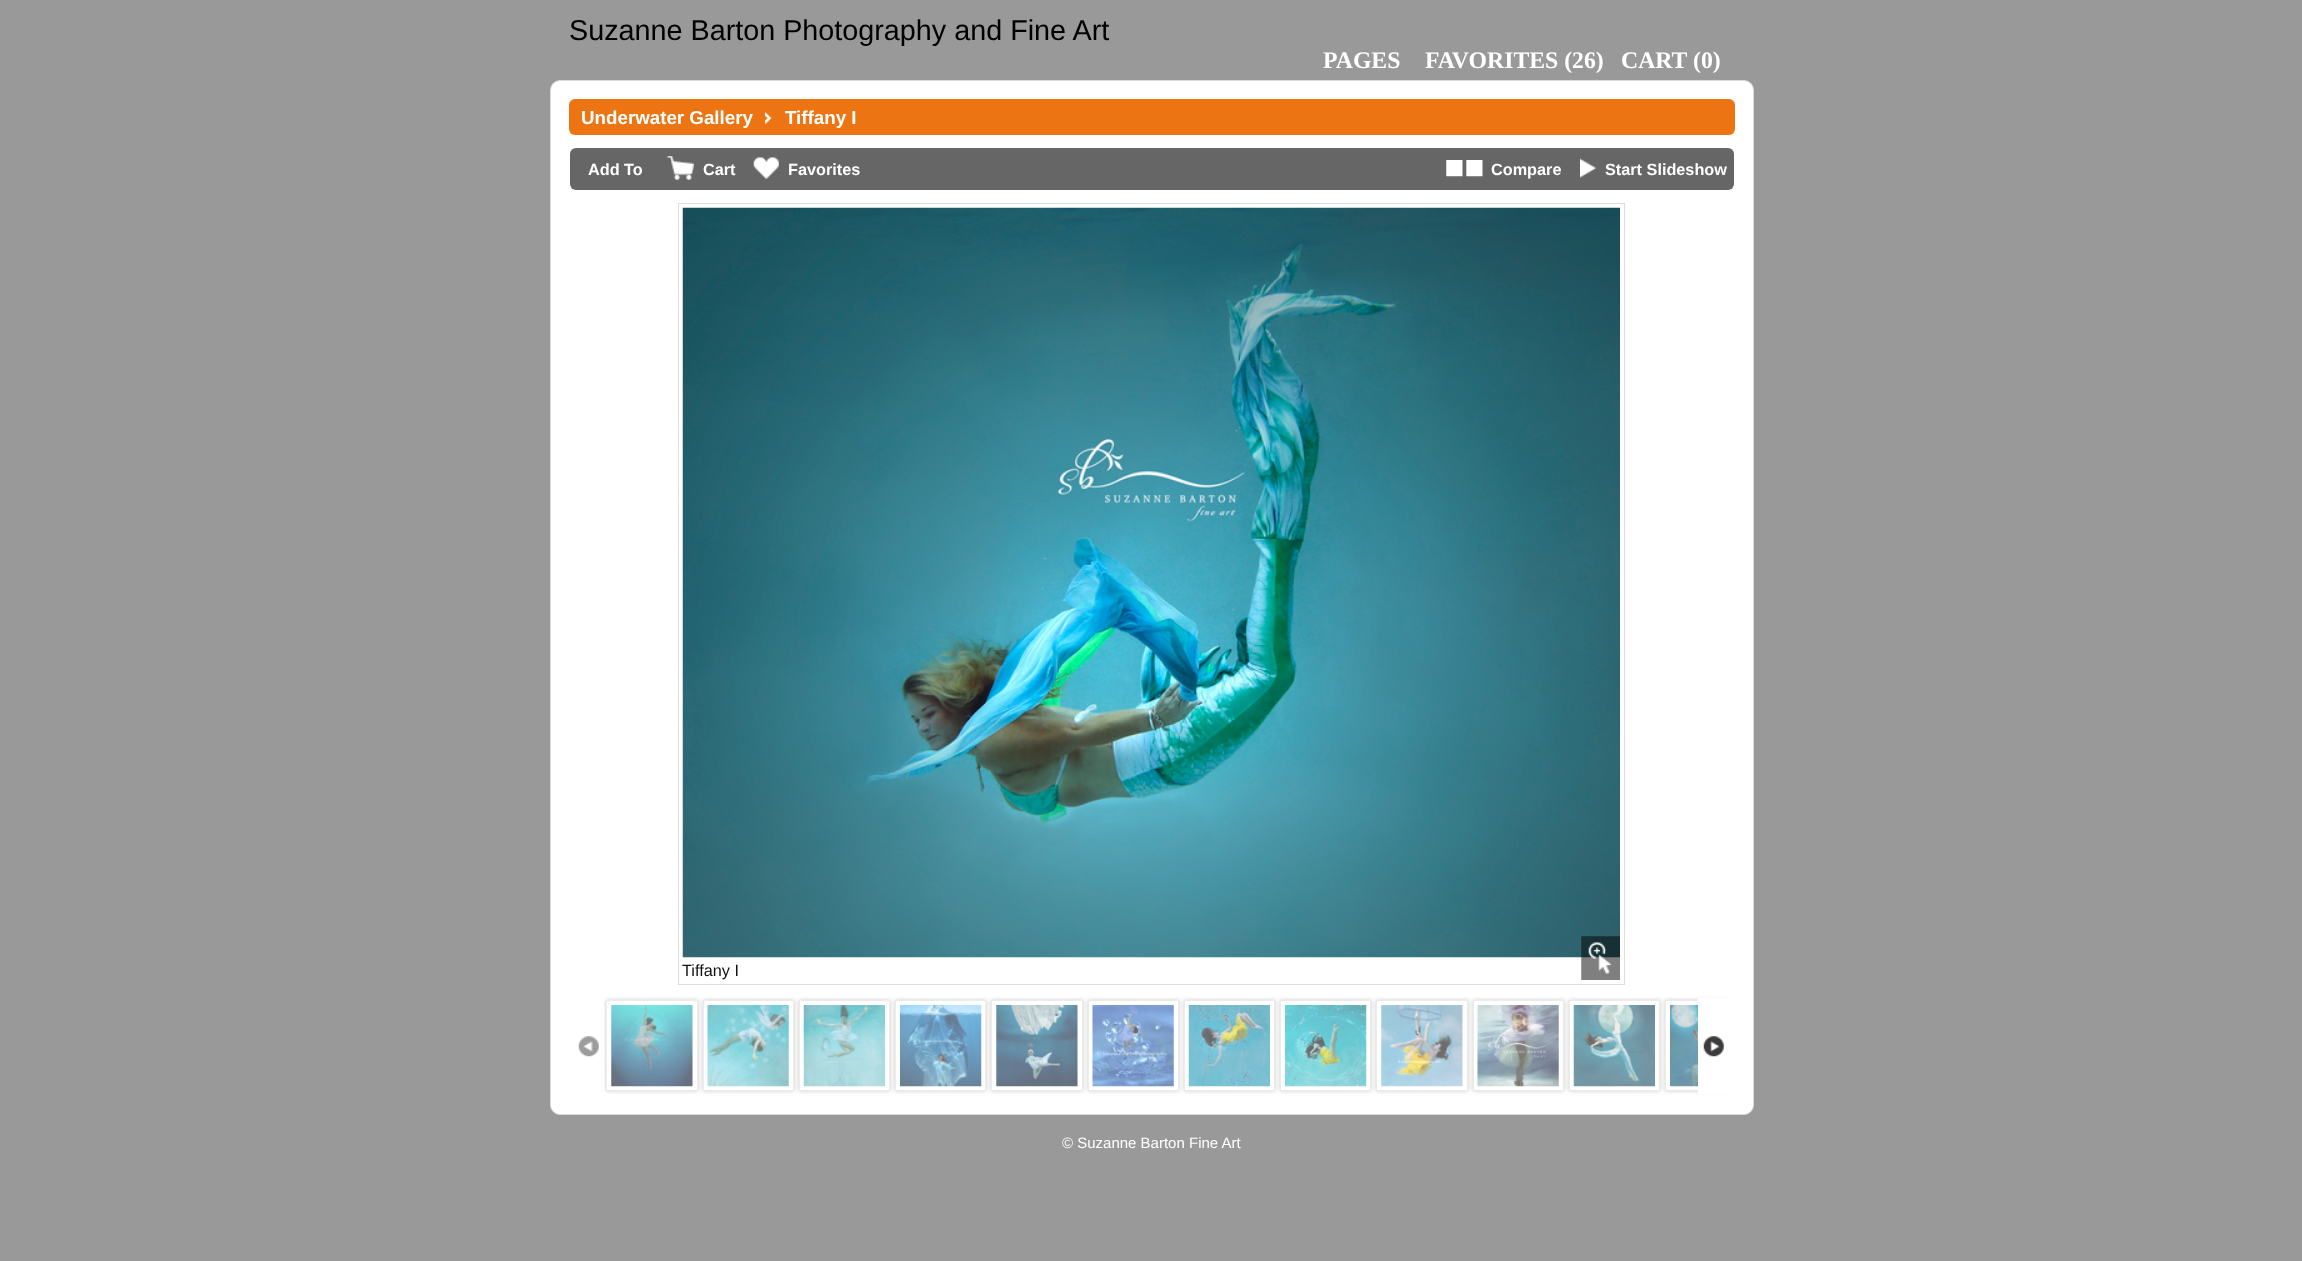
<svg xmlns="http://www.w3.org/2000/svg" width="2302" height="1261">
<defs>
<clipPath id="clip1"><path d="M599 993h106v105h-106zm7 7h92v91h-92z" clip-rule="evenodd"/></clipPath>
<clipPath id="clip2"><path d="M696 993h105v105h-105zm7 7h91v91h-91z" clip-rule="evenodd"/></clipPath>
<clipPath id="clip3"><path d="M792 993h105v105h-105zm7 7h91v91h-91z" clip-rule="evenodd"/></clipPath>
<clipPath id="clip4"><path d="M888 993h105v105h-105zm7 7h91v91h-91z" clip-rule="evenodd"/></clipPath>
<clipPath id="clip5"><path d="M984 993h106v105h-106zm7 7h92v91h-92z" clip-rule="evenodd"/></clipPath>
<clipPath id="clip6"><path d="M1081 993h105v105h-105zm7 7h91v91h-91z" clip-rule="evenodd"/></clipPath>
<clipPath id="clip7"><path d="M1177 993h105v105h-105zm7 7h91v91h-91z" clip-rule="evenodd"/></clipPath>
<clipPath id="clip8"><path d="M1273 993h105v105h-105zm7 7h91v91h-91z" clip-rule="evenodd"/></clipPath>
<clipPath id="clip9"><path d="M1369 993h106v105h-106zm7 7h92v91h-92z" clip-rule="evenodd"/></clipPath>
<clipPath id="clip10"><path d="M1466 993h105v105h-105zm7 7h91v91h-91z" clip-rule="evenodd"/></clipPath>
<clipPath id="clip11"><path d="M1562 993h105v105h-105zm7 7h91v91h-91z" clip-rule="evenodd"/></clipPath>
<clipPath id="clip12"><rect x="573" y="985" width="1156" height="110"/></clipPath>
<clipPath id="clip13"><path d="M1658 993h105v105h-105zm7 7h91v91h-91z" clip-rule="evenodd"/></clipPath>
<clipPath id="clip14"><rect x="573" y="985" width="1156" height="110"/></clipPath>
</defs>
<rect width="100%" height="100%" fill="#999"/>
<text x="569" y="40" style="font-family:Liberation Sans;font-size:28.75px;fill:#000">Suzanne Barton Photography and Fine Art</text>
<text x="1323" y="68" style="font-family:Liberation Serif;font-size:23.75px;font-weight:bold;fill:#fff">PAGES</text>
<text x="1425" y="68" style="font-family:Liberation Serif;font-size:23.75px;font-weight:bold;fill:#fff">FAVORITES (26)</text>
<text x="1621" y="68" style="font-family:Liberation Serif;font-size:23.75px;font-weight:bold;fill:#fff">CART (0)</text>
<rect x="550.5" y="80.5" width="1203" height="1034" rx="9.5" fill="#fff" stroke="#dadade"/>
<rect x="569" y="99" width="1166" height="36" rx="6" fill="#ec7413"/>
<text x="581" y="124" style="font-family:Liberation Sans;font-size:18.75px;font-weight:bold;fill:#fff">Underwater Gallery</text>
<image x="764" y="112" width="8" height="12" href="media/1.png"/>
<text x="785" y="124" style="font-family:Liberation Sans;font-size:18.75px;font-weight:bold;fill:#fff">Tiffany I</text>
<rect x="570" y="148" width="1164" height="42" rx="6" fill="#666"/>
<text x="588" y="175" style="font-family:Liberation Sans;font-size:16.25px;font-weight:bold;fill:#fff">Add To</text>
<image x="667" y="156" width="27" height="24" href="media/2.png"/>
<text x="703" y="175" style="font-family:Liberation Sans;font-size:16.25px;font-weight:bold;fill:#fff">Cart</text>
<image x="753" y="157" width="26" height="22" href="media/3.png"/>
<text x="788" y="175" style="font-family:Liberation Sans;font-size:16.25px;font-weight:bold;fill:#fff">Favorites</text>
<image x="1446" y="160" width="37" height="17" href="media/4.png"/>
<text x="1491" y="175" style="font-family:Liberation Sans;font-size:16.25px;font-weight:bold;fill:#fff">Compare</text>
<image x="1580" y="158" width="17" height="20" href="media/5.png"/>
<text x="1605" y="175" style="font-family:Liberation Sans;font-size:16.25px;font-weight:bold;fill:#fff">Start Slideshow</text>
<rect x="678.5" y="203.5" width="946" height="781" fill="none" stroke="#ddd"/>
<image x="682" y="207" width="938" height="751" href="media/6.png"/>
<text x="682" y="976" style="font-family:Liberation Sans;font-size:16.25px;fill:#111">Tiffany I</text>
<image x="1581" y="936" width="39" height="44" href="media/7.png"/>
<g clip-path="url(#clip1)">
<rect x="606" y="1000" width="92" height="91" fill="#ccc" filter="blur(2px)"/>
</g>
<rect x="606.5" y="1000.5" width="91" height="90" fill="none" stroke="#ebebeb"/>
<image x="611" y="1005" width="82" height="82" href="media/8.png"/>
<g clip-path="url(#clip2)">
<rect x="703" y="1000" width="91" height="91" fill="#aaaaaa99" filter="blur(2px)"/>
</g>
<rect x="703.5" y="1000.5" width="90" height="90" fill="none" stroke="#ebebeb"/>
<image x="707" y="1005" width="82" height="82" href="media/9.png"/>
<g clip-path="url(#clip3)">
<rect x="799" y="1000" width="91" height="91" fill="#aaaaaa99" filter="blur(2px)"/>
</g>
<rect x="799.5" y="1000.5" width="90" height="90" fill="none" stroke="#ebebeb"/>
<image x="803" y="1005" width="82" height="82" href="media/10.png"/>
<g clip-path="url(#clip4)">
<rect x="895" y="1000" width="91" height="91" fill="#aaaaaa99" filter="blur(2px)"/>
</g>
<rect x="895.5" y="1000.5" width="90" height="90" fill="none" stroke="#ebebeb"/>
<image x="900" y="1005" width="82" height="82" href="media/11.png"/>
<g clip-path="url(#clip5)">
<rect x="991" y="1000" width="92" height="91" fill="#aaaaaa99" filter="blur(2px)"/>
</g>
<rect x="991.5" y="1000.5" width="91" height="90" fill="none" stroke="#ebebeb"/>
<image x="996" y="1005" width="82" height="82" href="media/12.png"/>
<g clip-path="url(#clip6)">
<rect x="1088" y="1000" width="91" height="91" fill="#aaaaaa99" filter="blur(2px)"/>
</g>
<rect x="1088.5" y="1000.5" width="90" height="90" fill="none" stroke="#ebebeb"/>
<image x="1092" y="1005" width="82" height="82" href="media/13.png"/>
<g clip-path="url(#clip7)">
<rect x="1184" y="1000" width="91" height="91" fill="#aaaaaa99" filter="blur(2px)"/>
</g>
<rect x="1184.5" y="1000.5" width="90" height="90" fill="none" stroke="#ebebeb"/>
<image x="1188" y="1005" width="82" height="82" href="media/14.png"/>
<g clip-path="url(#clip8)">
<rect x="1280" y="1000" width="91" height="91" fill="#aaaaaa99" filter="blur(2px)"/>
</g>
<rect x="1280.5" y="1000.5" width="90" height="90" fill="none" stroke="#ebebeb"/>
<image x="1285" y="1005" width="82" height="82" href="media/15.png"/>
<g clip-path="url(#clip9)">
<rect x="1376" y="1000" width="92" height="91" fill="#aaaaaa99" filter="blur(2px)"/>
</g>
<rect x="1376.5" y="1000.5" width="91" height="90" fill="none" stroke="#ebebeb"/>
<image x="1381" y="1005" width="82" height="82" href="media/16.png"/>
<g clip-path="url(#clip10)">
<rect x="1473" y="1000" width="91" height="91" fill="#aaaaaa99" filter="blur(2px)"/>
</g>
<rect x="1473.5" y="1000.5" width="90" height="90" fill="none" stroke="#ebebeb"/>
<image x="1477" y="1005" width="82" height="82" href="media/17.png"/>
<g clip-path="url(#clip11)">
<rect x="1569" y="1000" width="91" height="91" fill="#aaaaaa99" filter="blur(2px)"/>
</g>
<rect x="1569.5" y="1000.5" width="90" height="90" fill="none" stroke="#ebebeb"/>
<image x="1573" y="1005" width="82" height="82" href="media/18.png"/>
<g clip-path="url(#clip12)">
<g clip-path="url(#clip13)">
<rect x="1665" y="1000" width="91" height="91" fill="#aaaaaa99" filter="blur(2px)"/>
</g>
</g>
<g clip-path="url(#clip14)">
<rect x="1665.5" y="1000.5" width="90" height="90" fill="none" stroke="#ebebeb"/>
</g>
<image x="1670" y="1005" width="28" height="82" href="media/19.png"/>
<rect x="603" y="1000" width="1" height="91" fill="#fff"/>
<image x="578" y="1036" width="21" height="21" href="media/20.png"/>
<rect x="1698" y="998" width="31" height="96" fill="#fff"/>
<image x="1703" y="1036" width="21" height="21" href="media/21.png"/>
<text x="1062" y="1148" style="font-family:Liberation Sans;font-size:15px;fill:#fff">© Suzanne Barton Fine Art</text>
</svg>
